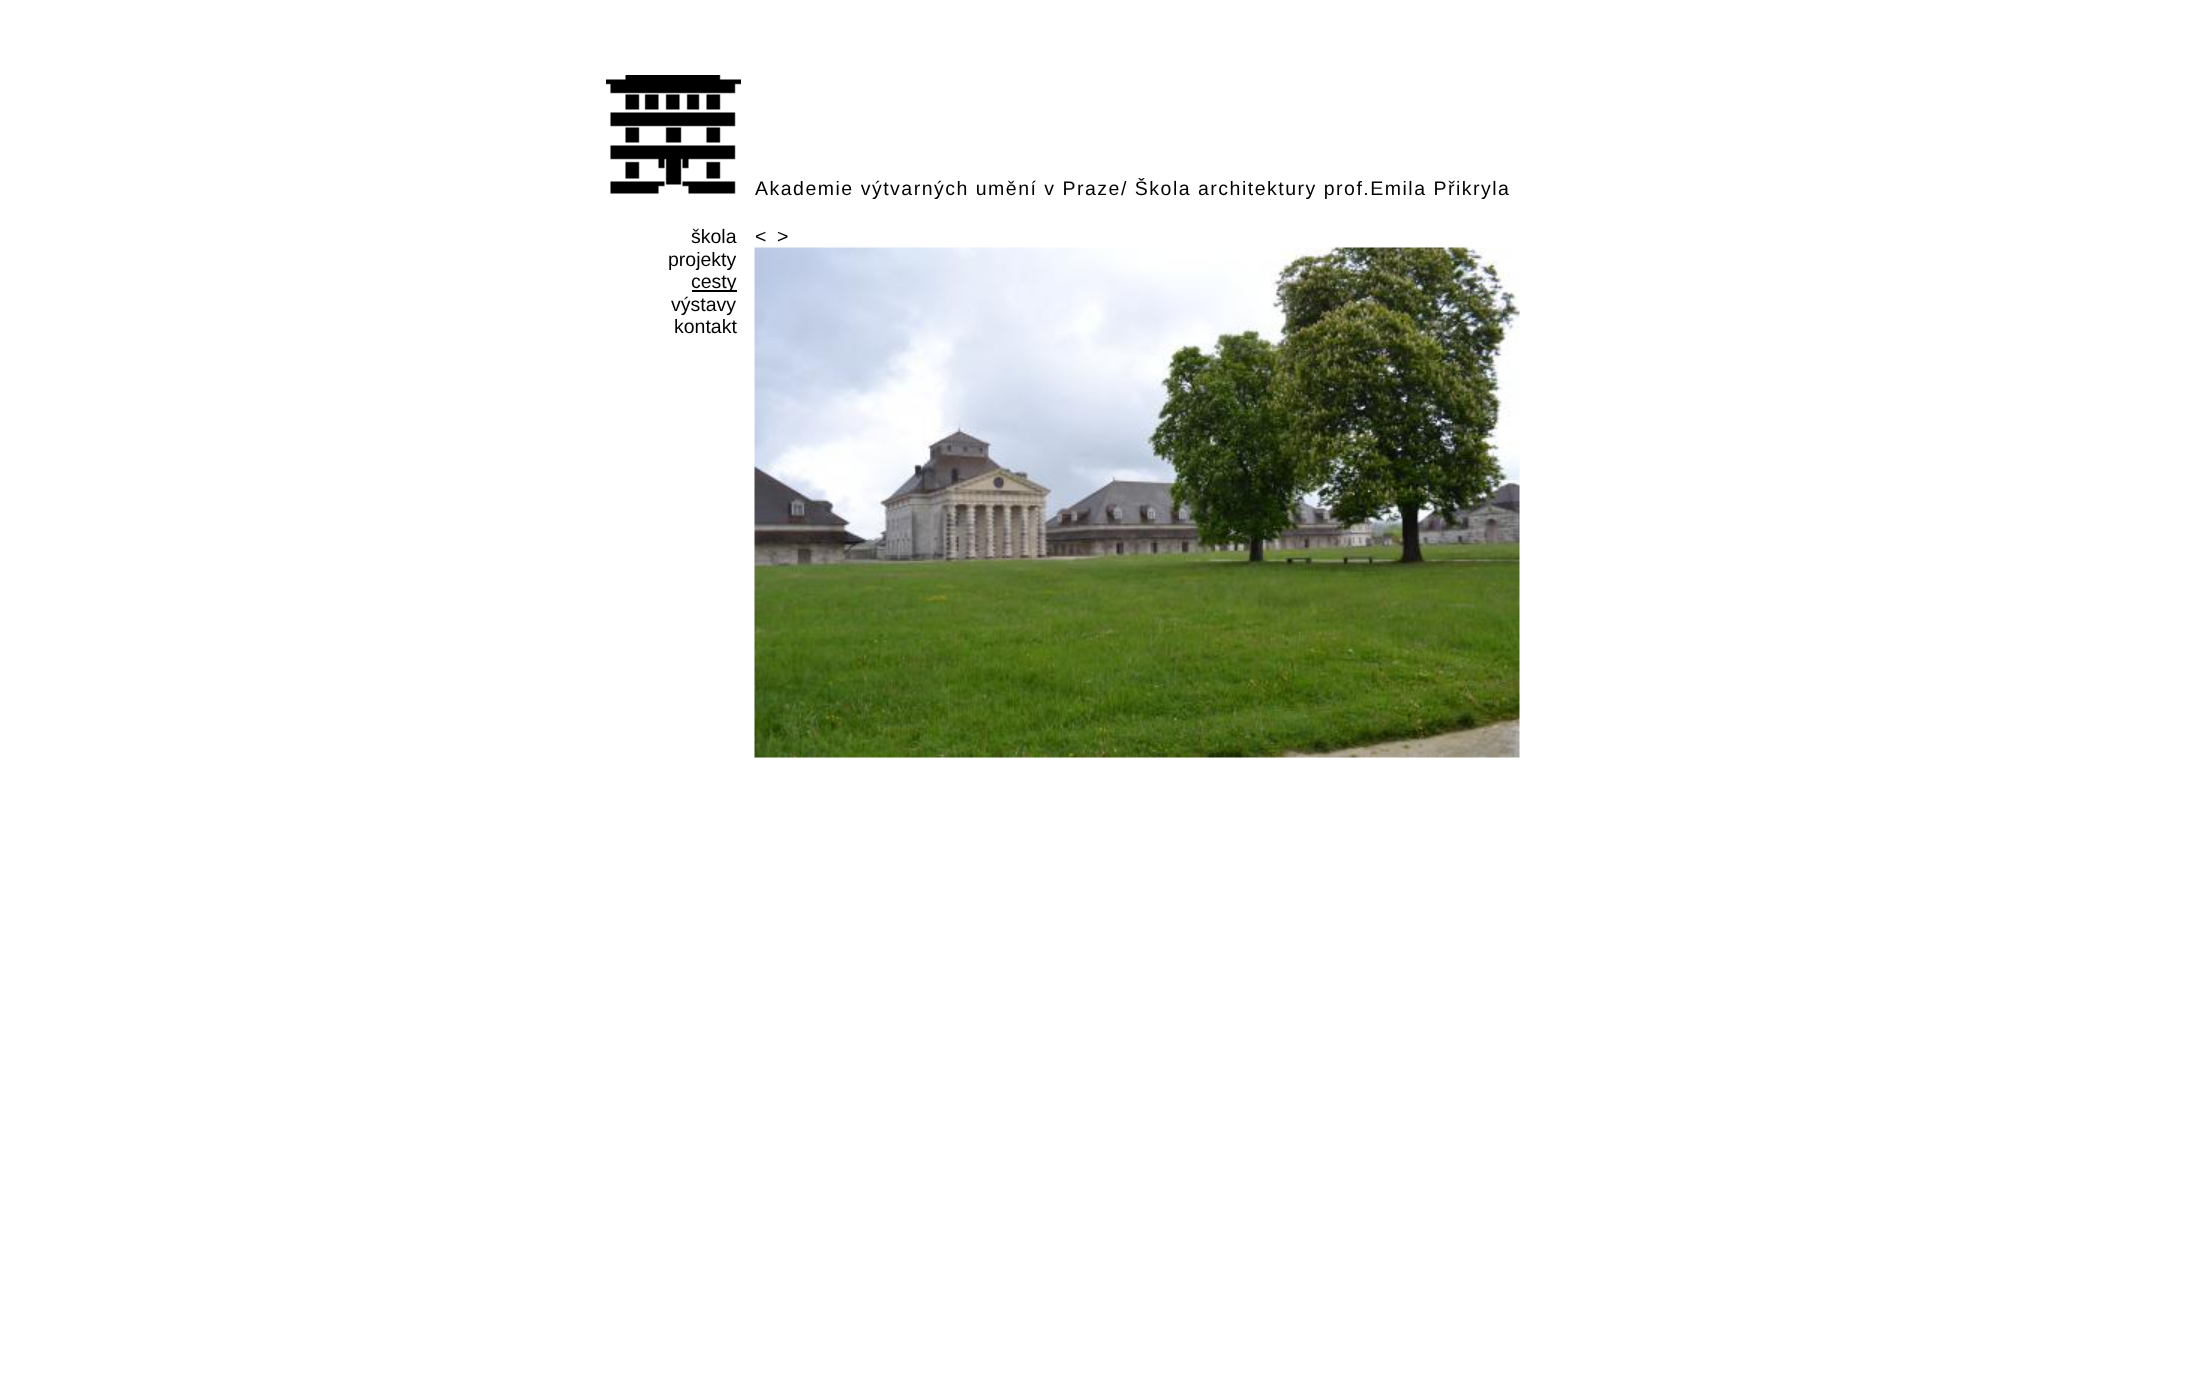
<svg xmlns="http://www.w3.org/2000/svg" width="2201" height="1397">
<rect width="100%" height="100%" fill="#fff"/>
<text x="755" y="195" style="font-family:Liberation Sans;font-size:19.5px;letter-spacing:1.5px;fill:#000">Akademie výtvarných umění v Praze/ Škola architektury prof.Emila Přikryla</text>
<text x="755" y="243" style="font-family:Liberation Sans;font-size:19.5px;fill:#000">&lt;</text>
<text x="777" y="243" style="font-family:Liberation Sans;font-size:19.5px;fill:#000">&gt;</text>
<image x="754" y="247" width="766" height="511" href="media/1.png"/>
<image x="606" y="75" width="135" height="119" href="media/2.png"/>
<text x="691" y="243" style="font-family:Liberation Sans;font-size:19.5px;fill:#000">škola</text>
<text x="668" y="266" style="font-family:Liberation Sans;font-size:19.5px;fill:#000">projekty</text>
<rect x="692" y="290" width="45" height="2" fill="#000"/>
<text x="691" y="288" style="font-family:Liberation Sans;font-size:19.5px;fill:#000">cesty</text>
<text x="671" y="311" style="font-family:Liberation Sans;font-size:19.5px;fill:#000">výstavy</text>
<text x="674" y="333" style="font-family:Liberation Sans;font-size:19.5px;fill:#000">kontakt</text>
</svg>
